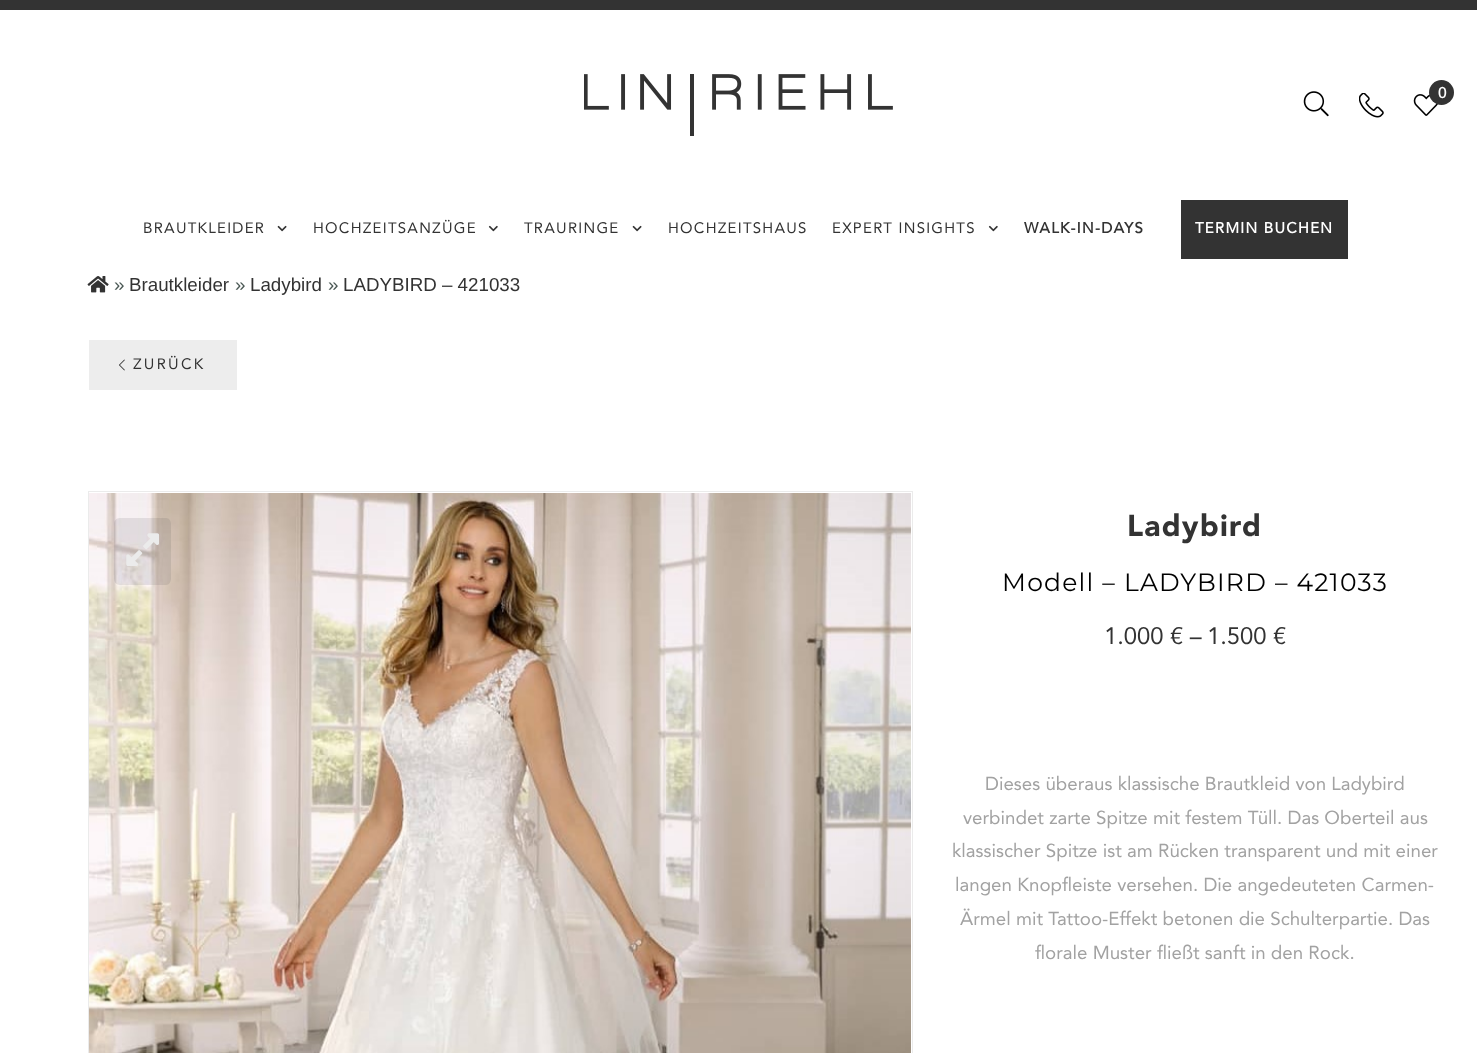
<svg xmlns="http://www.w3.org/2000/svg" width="1477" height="1053">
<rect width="100%" height="100%" fill="#fff"/>
<rect width="1477" height="10" fill="#333"/>
<image x="584" y="74" width="309" height="62" href="media/1.png"/>
<image x="1303" y="91" width="26" height="26" href="media/2.png"/>
<image x="1359" y="93" width="25" height="25" href="media/3.png"/>
<image x="1413" y="94" width="25" height="22" href="media/4.png"/>
<circle cx="1441.5" cy="92.5" r="12.5" fill="#333"/>
<text x="1438" y="98" style="font-family:Avenir;font-size:15px;font-weight:bold;fill:#fff">0</text>
<text x="143" y="233" style="font-family:Avenir;font-size:15px;letter-spacing:1.25px;fill:#333">BRAUTKLEIDER</text>
<image x="277" y="225" width="10" height="7" href="media/5.png"/>
<text x="313" y="233" style="font-family:Avenir;font-size:15px;letter-spacing:1.25px;fill:#333">HOCHZEITSANZÜGE</text>
<image x="488" y="225" width="10" height="7" href="media/6.png"/>
<text x="524" y="233" style="font-family:Avenir;font-size:15px;letter-spacing:1.25px;fill:#333">TRAURINGE</text>
<image x="632" y="225" width="10" height="7" href="media/5.png"/>
<text x="668" y="233" style="font-family:Avenir;font-size:15px;letter-spacing:1.25px;fill:#333">HOCHZEITSHAUS</text>
<text x="832" y="233" style="font-family:Avenir;font-size:15px;letter-spacing:1.25px;fill:#333">EXPERT INSIGHTS</text>
<image x="988" y="225" width="10" height="7" href="media/6.png"/>
<text x="1024" y="233" style="font-family:Avenir;font-size:15px;font-weight:bold;letter-spacing:1.25px;fill:#333">WALK-IN-DAYS</text>
<rect x="1181" y="200" width="167" height="59" fill="#333"/>
<text x="1195" y="233" style="font-family:Avenir;font-size:15px;font-weight:bold;letter-spacing:1.25px;fill:#fff">TERMIN BUCHEN</text>
<image x="87" y="276" width="22" height="17" href="media/7.png"/>
<text x="114" y="291" style="font-family:Liberation Sans;font-size:18.75px;fill:#4b5955">»</text>
<text x="129" y="291" style="font-family:Liberation Sans;font-size:18.75px;fill:#333">Brautkleider</text>
<text x="235" y="291" style="font-family:Liberation Sans;font-size:18.75px;fill:#4b5955">»</text>
<text x="250" y="291" style="font-family:Liberation Sans;font-size:18.75px;fill:#333">Ladybird</text>
<text x="328" y="291" style="font-family:Liberation Sans;font-size:18.75px;fill:#4b5955">»</text>
<text x="343" y="291" style="font-family:Liberation Sans;font-size:18.75px;fill:#333">LADYBIRD – 421033</text>
<rect x="89" y="340" width="148" height="50" fill="#ededed"/>
<image x="119" y="359" width="6" height="12" href="media/8.png"/>
<text x="133" y="369" style="font-family:Avenir;font-size:15px;letter-spacing:2.25px;fill:#333">ZURÜCK</text>
<rect x="88.5" y="491.5" width="824" height="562" fill="none" stroke="#ebebeb"/>
<image x="89" y="493" width="822" height="560" href="media/9.png"/>
<path d="M120 518h46c3 0 5 3 5 6v54c0 4-2 7-5 7h-46c-4 0-6-3-6-7v-54c0-3 2-6 6-6z" fill="#2628341a"/>
<image x="126" y="533" width="34" height="33" href="media/10.png"/>
<text x="1127" y="536" style="font-family:Avenir;font-size:30px;font-weight:900;letter-spacing:1.25px;fill:#333">Ladybird</text>
<text x="1002" y="591" style="font-family:Montserrat;font-size:25px;letter-spacing:1.25px;fill:#000">Modell – LADYBIRD – 421033</text>
<text x="1104" y="644" style="font-family:Avenir;font-size:23.75px;fill:#333">1.000 € –</text>
<text x="1207" y="644" style="font-family:Avenir;font-size:23.75px;fill:#333">1.500 €</text>
<text x="985" y="790" style="font-family:Avenir;font-size:18.75px;fill:#a2a2a2">Dieses überaus klassische Brautkleid von Ladybird</text>
<text x="963" y="824" style="font-family:Avenir;font-size:18.75px;fill:#a2a2a2">verbindet zarte Spitze mit festem Tüll. Das Oberteil aus</text>
<text x="952" y="857" style="font-family:Avenir;font-size:18.75px;fill:#a2a2a2">klassischer Spitze ist am Rücken transparent und mit einer</text>
<text x="955" y="891" style="font-family:Avenir;font-size:18.75px;fill:#a2a2a2">langen Knopfleiste versehen. Die angedeuteten Carmen-</text>
<text x="960" y="925" style="font-family:Avenir;font-size:18.75px;fill:#a2a2a2">Ärmel mit Tattoo-Effekt betonen die Schulterpartie. Das</text>
<text x="1035" y="959" style="font-family:Avenir;font-size:18.75px;fill:#a2a2a2">florale Muster fließt sanft in den Rock.</text>
</svg>
